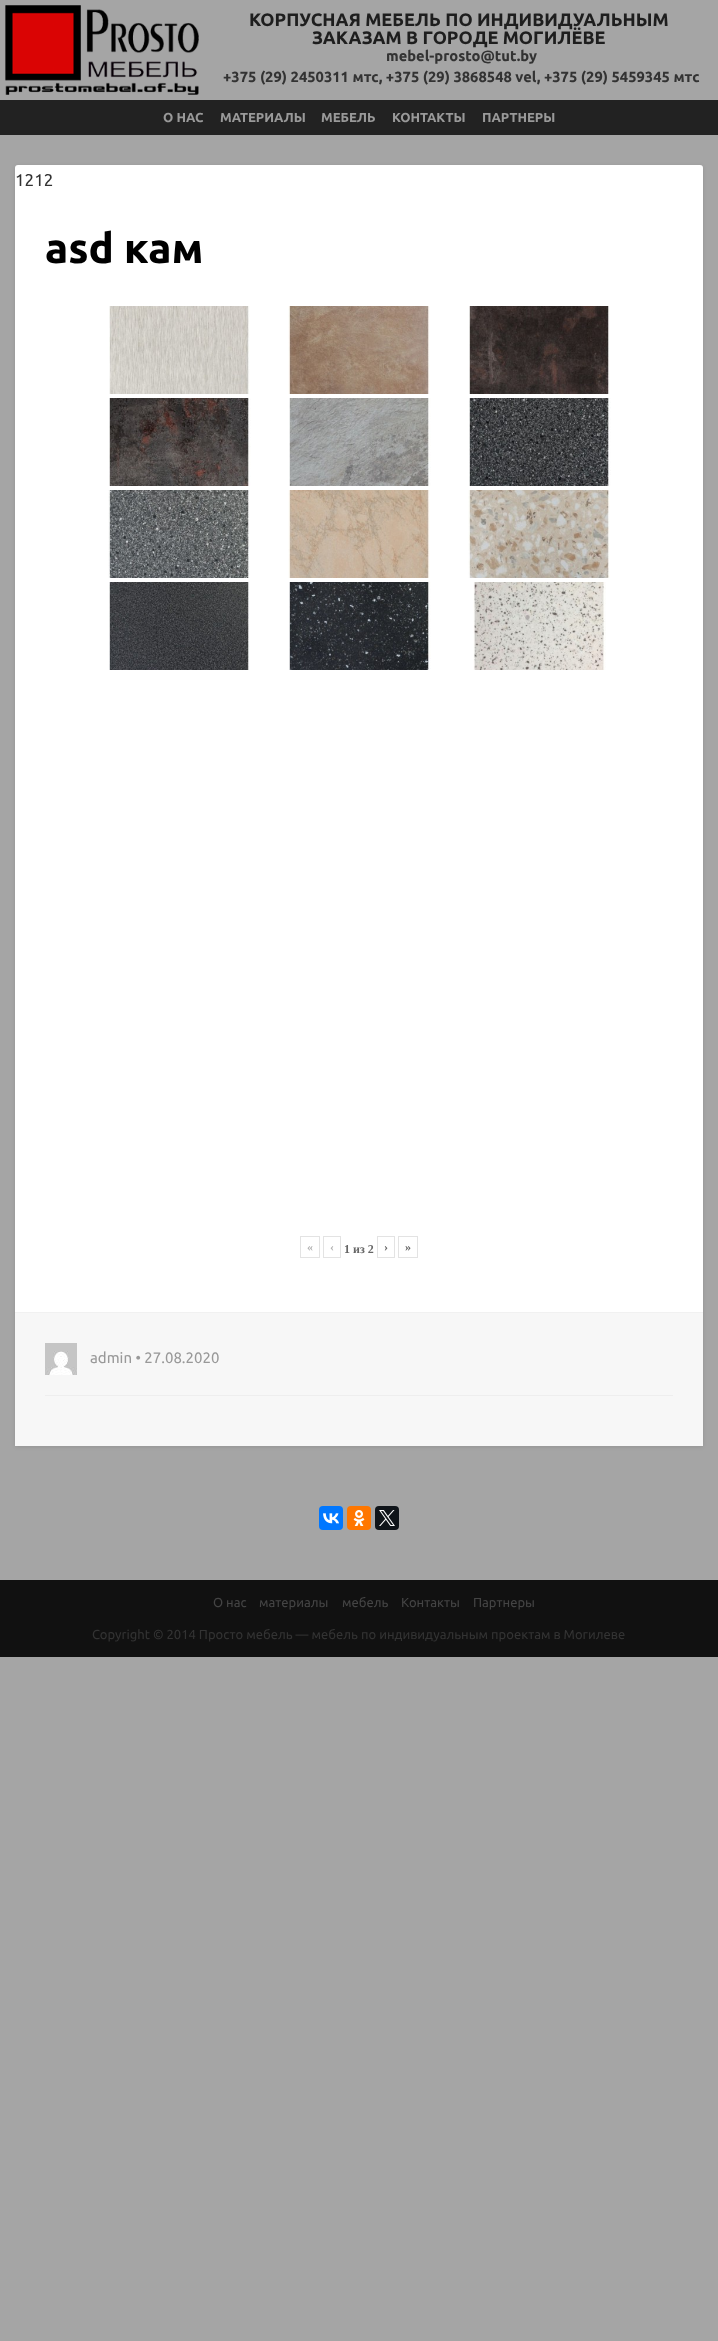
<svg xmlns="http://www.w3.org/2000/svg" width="718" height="2341">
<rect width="100%" height="100%" fill="#a5a5a5"/>
<image x="5" y="5" width="194" height="90" href="media/1.png"/>
<text x="249" y="26" style="font-family:Ubuntu;font-size:18px;font-weight:bold;fill:#1e1e1e">КОРПУСНАЯ МЕБЕЛЬ ПО ИНДИВИДУАЛЬНЫМ</text>
<text x="312" y="44" style="font-family:Ubuntu;font-size:18px;font-weight:bold;fill:#1e1e1e">ЗАКАЗАМ В ГОРОДЕ МОГИЛЁВЕ</text>
<text x="386" y="61" style="font-family:Ubuntu;font-size:14.7px;font-weight:bold;fill:#333">mebel-prosto@tut.by</text>
<text x="223" y="82" style="font-family:Ubuntu;font-size:14.7px;font-weight:bold;fill:#333">+375 (29) 2450311 мтс, +375 (29) 3868548 vel, +375 (29) 5459345 мтс</text>
<rect y="100" width="718" height="35" fill="#222"/>
<text x="163" y="122" style="font-family:Ubuntu;font-size:13px;font-weight:bold;fill:#999">О НАС</text>
<text x="220" y="122" style="font-family:Ubuntu;font-size:13px;font-weight:bold;fill:#999">МАТЕРИАЛЫ</text>
<text x="321" y="122" style="font-family:Ubuntu;font-size:13px;font-weight:bold;fill:#999">МЕБЕЛЬ</text>
<text x="392" y="122" style="font-family:Ubuntu;font-size:13px;font-weight:bold;fill:#999">КОНТАКТЫ</text>
<text x="482" y="122" style="font-family:Ubuntu;font-size:13px;font-weight:bold;fill:#999">ПАРТНЕРЫ</text>
<rect x="15" y="166" width="688" height="1281" rx="3" fill="#0000001a" filter="blur(2px)"/>
<rect x="15" y="165" width="688" height="1281" rx="3" fill="#fff"/>
<text x="15" y="186" style="font-family:Ubuntu;font-size:17px;fill:#333">1212</text>
<text x="45" y="263" style="font-family:Ubuntu;font-size:42px;font-weight:bold;fill:#000">asd кам</text>
<image x="109" y="306" width="141" height="88" href="media/2.png"/>
<image x="288" y="306" width="142" height="88" href="media/3.png"/>
<image x="469" y="306" width="141" height="88" href="media/4.png"/>
<image x="109" y="398" width="142" height="88" href="media/5.png"/>
<image x="289" y="398" width="142" height="88" href="media/6.png"/>
<image x="469" y="398" width="142" height="88" href="media/7.png"/>
<image x="108" y="490" width="142" height="88" href="media/8.png"/>
<image x="288" y="490" width="142" height="88" href="media/9.png"/>
<image x="468" y="490" width="142" height="88" href="media/10.png"/>
<image x="109" y="582" width="141" height="88" href="media/11.png"/>
<image x="289" y="582" width="142" height="88" href="media/12.png"/>
<image x="473" y="582" width="133" height="88" href="media/13.png"/>
<rect x="300.5" y="1236.5" width="19" height="21" fill="none" stroke="#e3e3e3"/>
<text x="307" y="1251" style="font-family:Liberation Serif;font-size:12px;font-weight:bold;fill:#b3b3b3">«</text>
<rect x="323.5" y="1236.5" width="17" height="21" fill="none" stroke="#e3e3e3"/>
<text x="330" y="1251" style="font-family:Liberation Serif;font-size:12px;font-weight:bold;fill:#b3b3b3">‹</text>
<text x="344" y="1253" style="font-family:Liberation Serif;font-size:12px;font-weight:bold;fill:#666">1 из 2</text>
<rect x="377.5" y="1236.5" width="17" height="21" fill="none" stroke="#e3e3e3"/>
<text x="384" y="1251" style="font-family:Liberation Serif;font-size:12px;font-weight:bold;fill:#666">›</text>
<rect x="398.5" y="1236.5" width="19" height="21" fill="none" stroke="#e3e3e3"/>
<text x="405" y="1251" style="font-family:Liberation Serif;font-size:12px;font-weight:bold;fill:#666">»</text>
<rect x="15" y="1313" width="688" height="133" fill="#f7f7f7"/>
<rect x="15" y="1312" width="688" height="1" fill="#f1f1f1"/>
<image x="45" y="1343" width="32" height="32" href="media/14.png"/>
<text x="90" y="1363" style="font-family:Ubuntu;font-size:15px;fill:#999">admin • 27.08.2020</text>
<rect x="45" y="1395" width="628" height="1" fill="#eee"/>
<rect x="319" y="1506" width="24" height="24" rx="4" fill="#07f"/>
<image x="323" y="1513" width="16" height="11" href="media/15.png"/>
<rect x="347" y="1506" width="24" height="24" rx="4" fill="#f70"/>
<image x="353" y="1510" width="12" height="16" href="media/16.png"/>
<rect x="375" y="1506" width="24" height="24" rx="4" fill="#0f1419"/>
<image x="379" y="1510" width="16" height="16" href="media/17.png"/>
<rect y="1580" width="718" height="77" fill="#111"/>
<text x="213" y="1607" style="font-family:Ubuntu;font-size:13px;fill:#444">О нас</text>
<text x="259" y="1607" style="font-family:Ubuntu;font-size:13px;fill:#444">материалы</text>
<text x="342" y="1607" style="font-family:Ubuntu;font-size:13px;fill:#444">мебель</text>
<text x="401" y="1607" style="font-family:Ubuntu;font-size:13px;fill:#444">Контакты</text>
<text x="473" y="1607" style="font-family:Ubuntu;font-size:13px;fill:#444">Партнеры</text>
<text x="92" y="1639" style="font-family:Ubuntu;font-size:13px;fill:#333">Copyright © 2014 Просто мебель — мебель по индивидуальным проектам в Могилеве</text>
</svg>
